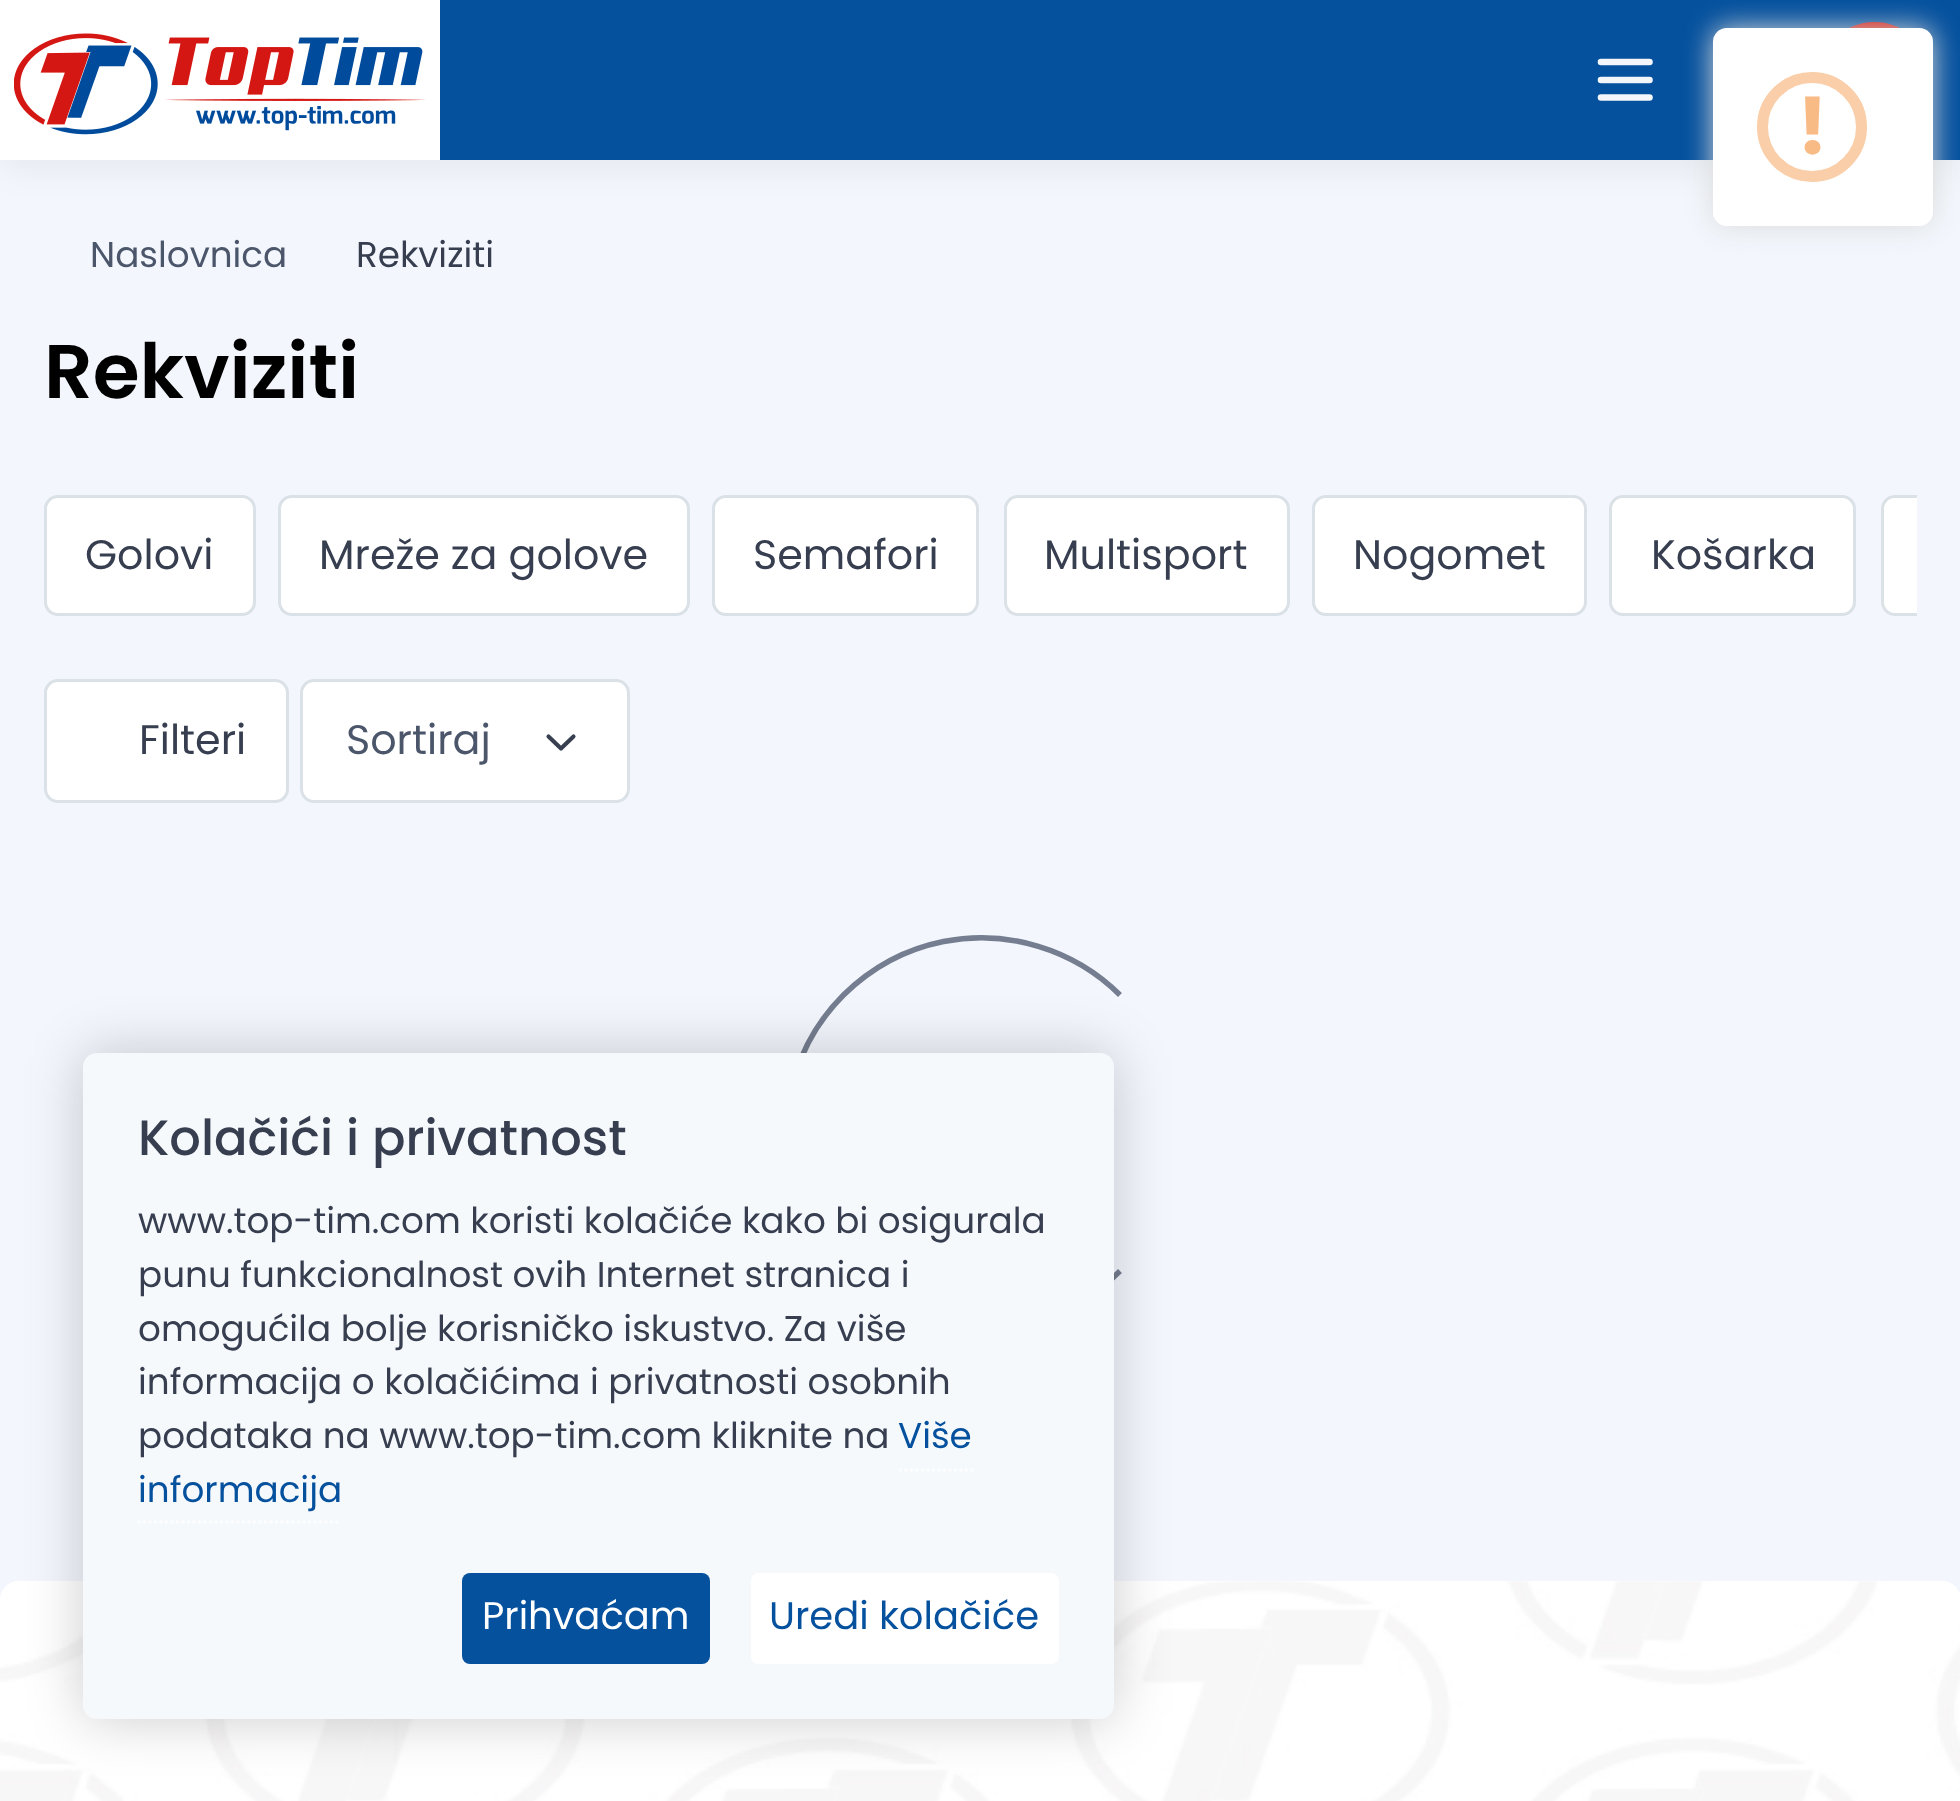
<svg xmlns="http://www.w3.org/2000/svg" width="1960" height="1801">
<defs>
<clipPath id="clip1"><rect x="44" y="495" width="1873" height="162"/></clipPath>
</defs>
<rect width="100%" height="100%" fill="#f3f7fd"/>
<rect x="3" y="14" width="1955" height="154" fill="#0000000f" filter="blur(16.5px)"/>
<rect x="440" width="1520" height="160" fill="#05519e"/>
<rect x="1818" y="22" width="113" height="116" rx="56.5" fill="#d41712"/>
<rect x="1713" y="28" width="220" height="198" rx="14" fill="#d9d9d9" filter="blur(14px)"/>
<rect x="1713" y="28" width="220" height="198" rx="14" fill="#fff"/>
<circle cx="1812" cy="127" r="49.5" fill="none" stroke="#facea8" stroke-width="11"/>
<text x="1797" y="154" style="font-family:Poppins;font-size:79px;font-weight:bold;fill:#f8bb86">!</text>
<rect width="440" height="160" fill="#fff"/>
<image x="14" y="33" width="412" height="102" href="media/1.png"/>
<path d="M1601 62h48.5m-48.5 18h48.5m-48.5 17.5h48.5" fill="none" stroke="#f3f6fa" stroke-width="6.6" stroke-linecap="round"/>
<text x="90" y="267" style="font-family:Poppins;font-size:35.75px;fill:#4b566b">Naslovnica</text>
<text x="356" y="267" style="font-family:Poppins;font-size:35.75px;fill:#363e4f">Rekviziti</text>
<text x="44" y="398" style="font-family:Poppins;font-size:76px;font-weight:600;fill:#000">Rekviziti</text>
<rect x="45.5" y="496.5" width="209" height="118" rx="12.5" fill="#fff" stroke="#dae1e7" stroke-width="3"/>
<text x="85" y="569" style="font-family:Poppins;font-size:41.25px;fill:#363e4f">Golovi</text>
<rect x="279.5" y="496.5" width="409" height="118" rx="12.5" fill="#fff" stroke="#dae1e7" stroke-width="3"/>
<text x="319" y="569" style="font-family:Poppins;font-size:41.25px;fill:#363e4f">Mreže za golove</text>
<rect x="713.5" y="496.5" width="264" height="118" rx="12.5" fill="#fff" stroke="#dae1e7" stroke-width="3"/>
<text x="753" y="569" style="font-family:Poppins;font-size:41.25px;fill:#363e4f">Semafori</text>
<rect x="1005.5" y="496.5" width="283" height="118" rx="12.5" fill="#fff" stroke="#dae1e7" stroke-width="3"/>
<text x="1044" y="569" style="font-family:Poppins;font-size:41.25px;fill:#363e4f">Multisport</text>
<rect x="1313.5" y="496.5" width="272" height="118" rx="12.5" fill="#fff" stroke="#dae1e7" stroke-width="3"/>
<text x="1353" y="569" style="font-family:Poppins;font-size:41.25px;fill:#363e4f">Nogomet</text>
<rect x="1610.5" y="496.5" width="244" height="118" rx="12.5" fill="#fff" stroke="#dae1e7" stroke-width="3"/>
<text x="1651" y="569" style="font-family:Poppins;font-size:41.25px;fill:#363e4f">Košarka</text>
<path d="M1895 495h22v121h-22c-7.5 0-14-6.5-14-14v-93c0-7.5 6.5-14 14-14z" fill="#fff"/>
<g clip-path="url(#clip1)">
<rect x="1882.5" y="496.5" width="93" height="118" rx="12.5" fill="none" stroke="#dae1e7" stroke-width="3"/>
</g>
<rect x="45.5" y="680.5" width="242" height="121" rx="12.5" fill="#fff" stroke="#dae1e7" stroke-width="3"/>
<text x="139" y="754" style="font-family:Poppins;font-size:41.25px;fill:#363e4f">Filteri</text>
<rect x="300" y="679" width="330" height="124" rx="14" fill="#fff"/>
<path d="M548.5 736.5l12.5 12l12.5-12" fill="none" stroke="#373f50" stroke-width="4.1" stroke-linecap="round" stroke-linejoin="round"/>
<rect x="301.5" y="680.5" width="327" height="121" rx="12.5" fill="none" stroke="#dae1e7" stroke-width="3"/>
<text x="346" y="754" style="font-family:Poppins;font-size:41.25px;fill:#4b566b">Sortiraj</text>
<path d="M1120 1271c-36.5 36.5-87 57-138 57c-32 0-64-7.5-92-23c-115.5-61.5-139-217.5-46.5-310c27.5-27 62.5-46 100-53.5c63.5-12.5 130.5 7.5 176.5 53.5" fill="none" stroke="#757e90" stroke-width="5.5"/>
<rect y="1581" width="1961" height="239" rx="19" fill="#fff"/>
<image x="0" y="1581" width="1960" height="220" href="media/2.png"/>
<rect x="83" y="1053" width="1031" height="666" rx="14" fill="#00000033" filter="blur(27.5px)"/>
<rect x="83" y="1053" width="1031" height="666" rx="14" fill="#f6f9fc"/>
<text x="138" y="1155" style="font-family:Poppins;font-size:49.5px;font-weight:500;fill:#363e4f">Kolačići i privatnost</text>
<text x="138" y="1233" style="font-family:Poppins;font-size:35.75px;fill:#363e4f">www.top-tim.com koristi kolačiće kako bi osigurala</text>
<text x="138" y="1287" style="font-family:Poppins;font-size:35.75px;fill:#363e4f">punu funkcionalnost ovih Internet stranica i</text>
<text x="138" y="1341" style="font-family:Poppins;font-size:35.75px;fill:#363e4f">omogućila bolje korisničko iskustvo. Za više</text>
<text x="138" y="1394" style="font-family:Poppins;font-size:35.75px;fill:#363e4f">informacija o kolačićima i privatnosti osobnih</text>
<text x="138" y="1448" style="font-family:Poppins;font-size:35.75px;fill:#363e4f">podataka na www.top-tim.com kliknite na</text>
<text x="898" y="1448" style="font-family:Poppins;font-size:35.75px;fill:#05519e">Više</text>
<path d="M899 1470h74.5" fill="none" stroke="#fdfefe" stroke-width="2.8" stroke-dasharray="2.75 2.75"/>
<text x="138" y="1502" style="font-family:Poppins;font-size:35.75px;fill:#05519e">informacija</text>
<path d="M137.5 1522h203.5" fill="none" stroke="#fdfefe" stroke-width="2.8" stroke-dasharray="2.75 2.75"/>
<rect x="462" y="1573" width="248" height="91" rx="8" fill="#05519e"/>
<text x="482" y="1629" style="font-family:Poppins;font-size:38.5px;fill:#fff">Prihvaćam</text>
<rect x="751" y="1573" width="308" height="91" rx="8" fill="#fff"/>
<text x="769" y="1629" style="font-family:Poppins;font-size:38.5px;fill:#05519e">Uredi kolačiće</text>
</svg>
